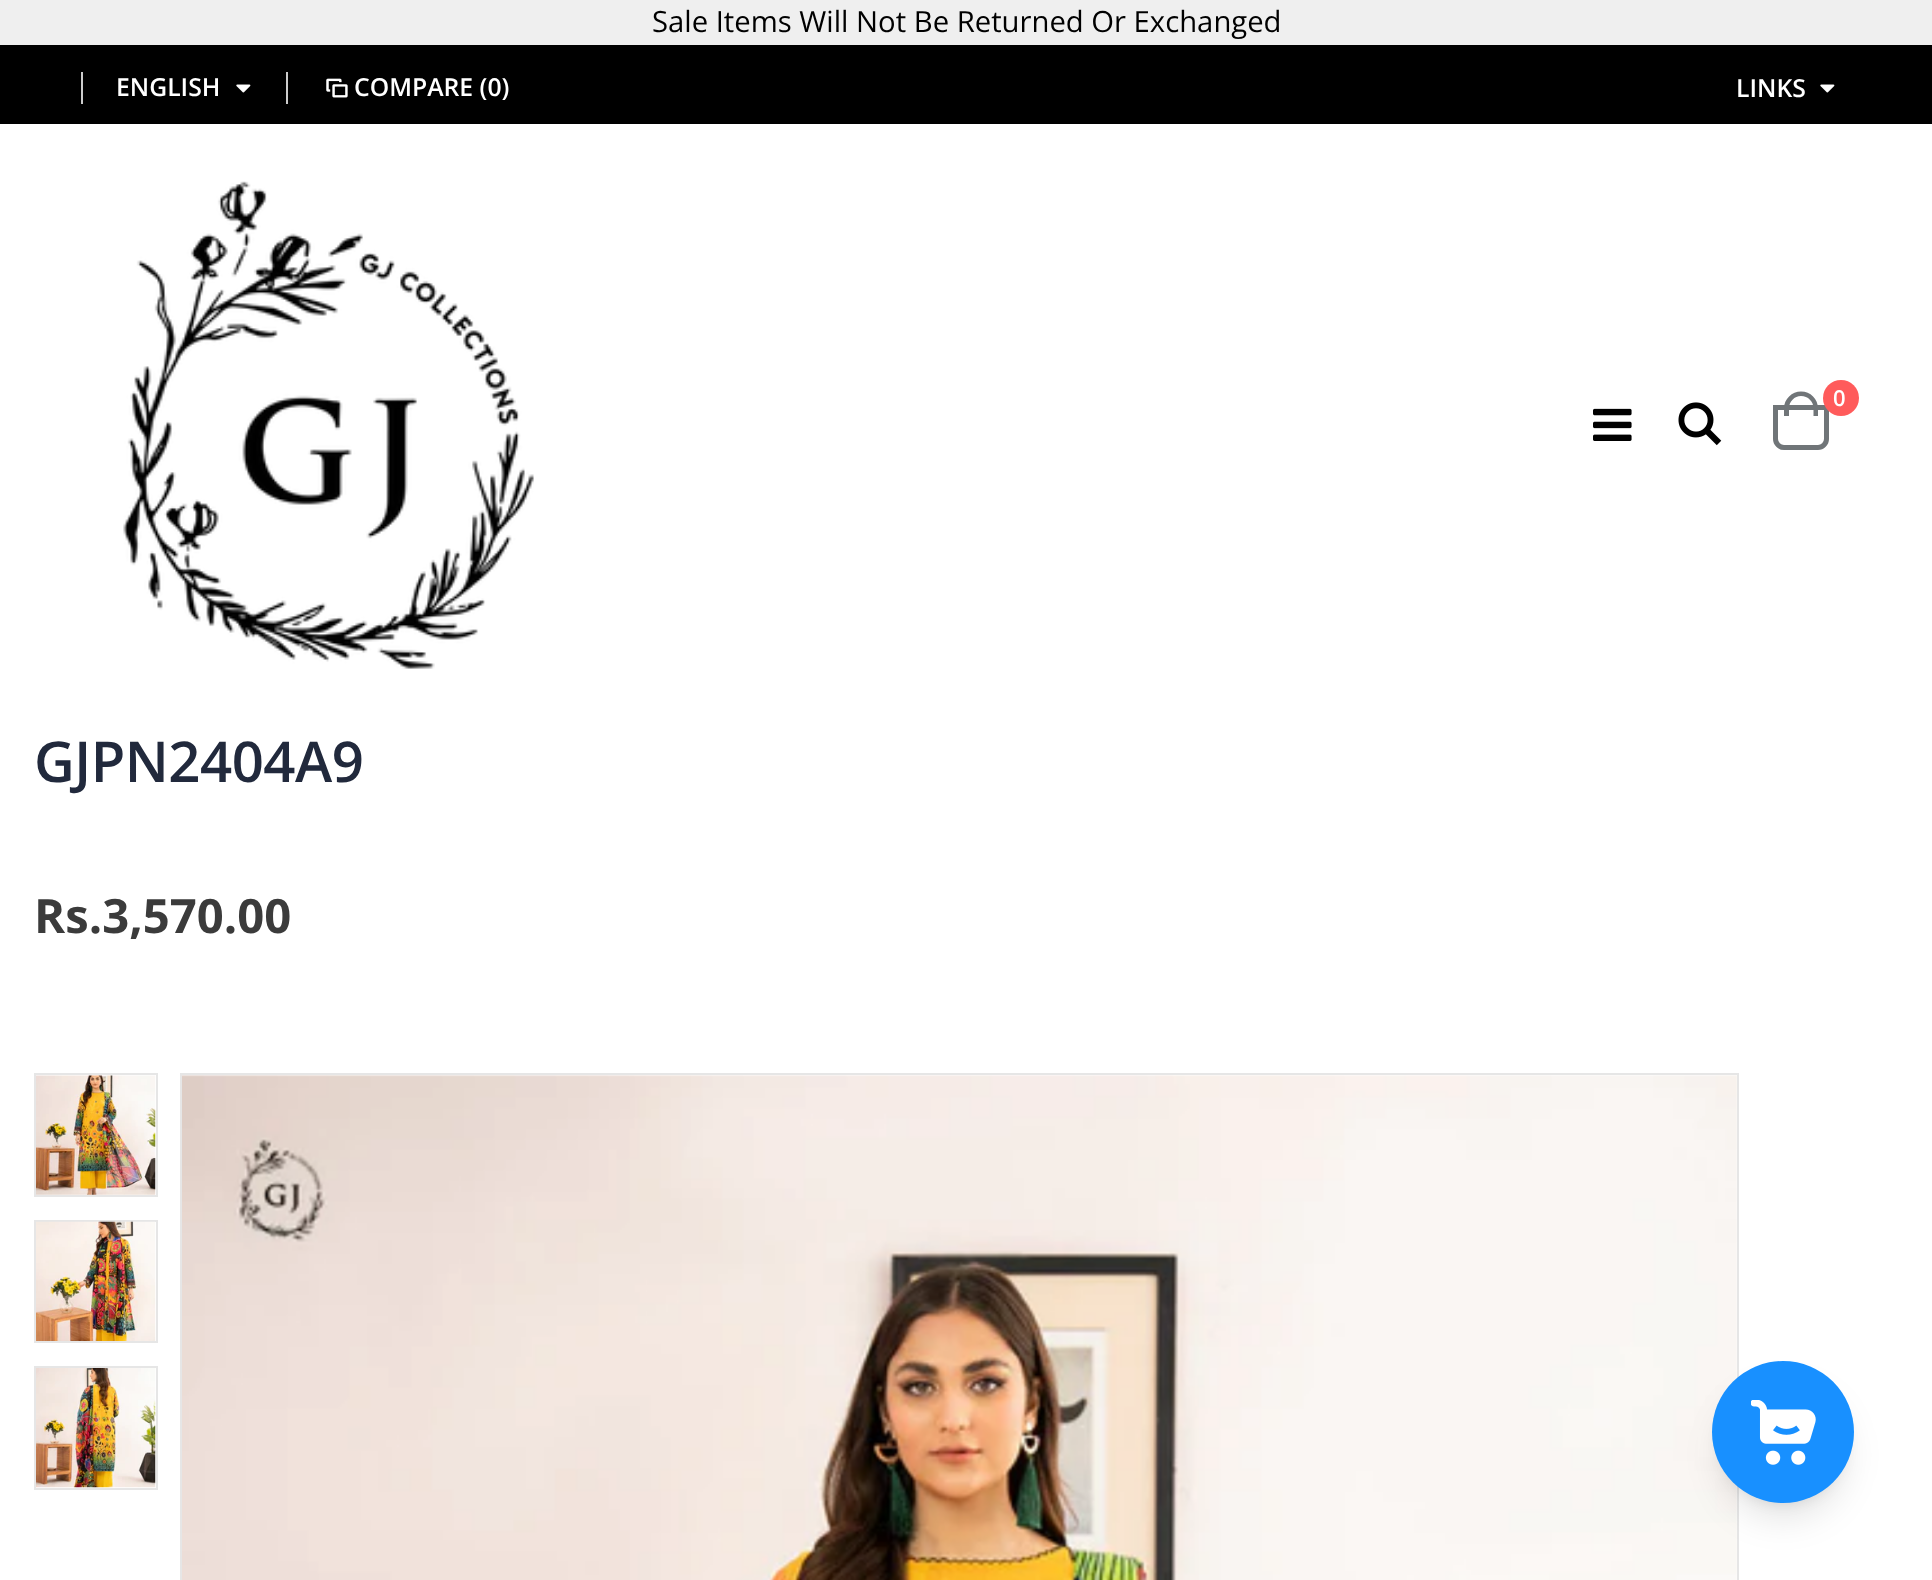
<svg xmlns="http://www.w3.org/2000/svg" width="1932" height="1580">
<rect width="100%" height="100%" fill="#fff"/>
<rect width="1932" height="45" fill="#efefef"/>
<text x="652" y="32" style="font-family:Open Sans;font-size:29.25px;fill:#000">Sale Items Will Not Be Returned Or Exchanged</text>
<rect y="45" width="1932" height="79" fill="#000"/>
<rect x="81" y="72" width="2" height="32" fill="#ccc"/>
<text x="116" y="96" style="font-family:Open Sans;font-size:24.75px;font-weight:600;fill:#fff">ENGLISH</text>
<image x="236" y="84" width="15" height="9" href="media/1.png"/>
<rect x="286" y="72" width="2" height="32" fill="#ccc"/>
<image x="326" y="78" width="22" height="20" href="media/2.png"/>
<text x="354" y="96" style="font-family:Open Sans;font-size:24.75px;font-weight:600;fill:#fff">COMPARE (0)</text>
<text x="1736" y="97" style="font-family:Open Sans;font-size:24.75px;font-weight:600;fill:#fff">LINKS</text>
<image x="1820" y="84" width="15" height="9" href="media/1.png"/>
<image x="123" y="181" width="411" height="488" href="media/3.png"/>
<path d="M1775.5 407.5h51v31.5c0 4.5-4 8.5-8.5 8.5h-34c-4.5 0-8.5-4-8.5-8.5z" fill="none" stroke="#707578" stroke-width="5"/>
<path d="M1801 391.5c9.5 0 17 7.5 17 17v7.5h-34v-7.5c0-9.5 8-17 17-17zm0 4.5c7 0 12.5 5.5 12.5 12.5v7.5h-24.5v-7.5c0-7 5.5-12.5 12-12.5z" fill="#707578" fill-rule="evenodd"/>
<circle cx="1841" cy="398" r="18" fill="#ff5b5b"/>
<text x="1833" y="406" style="font-family:Open Sans;font-size:22px;font-weight:600;fill:#fff">0</text>
<image x="1593" y="408" width="39" height="33" href="media/4.png"/>
<image x="1678" y="402" width="44" height="44" href="media/5.png"/>
<text x="34" y="782" style="font-family:Open Sans;font-size:56.25px;font-weight:600;letter-spacing:-0.5px;fill:#21293c">GJPN2404A9</text>
<text x="34" y="933" style="font-family:Open Sans;font-size:47.25px;font-weight:bold;fill:#3b3b3b">Rs.3,570.00</text>
<rect x="35" y="1074" width="122" height="122" fill="none" stroke="#e6e6e6" stroke-width="2"/>
<image x="36" y="1075" width="120" height="120" href="media/6.png"/>
<rect x="35" y="1221" width="122" height="121" fill="none" stroke="#e6e6e6" stroke-width="2"/>
<image x="36" y="1221" width="120" height="120" href="media/7.png"/>
<rect x="35" y="1367" width="122" height="122" fill="none" stroke="#e6e6e6" stroke-width="2"/>
<image x="36" y="1368" width="120" height="120" href="media/8.png"/>
<rect x="181" y="1074" width="1557" height="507" fill="none" stroke="#e6e6e6" stroke-width="2"/>
<image x="182" y="1075" width="1555" height="505" href="media/9.png"/>
<rect x="1721" y="1379" width="124" height="124" rx="62" fill="#0000001a" filter="blur(7px)"/>
<rect x="1719" y="1391" width="128" height="128" rx="64" fill="#0000001a" filter="blur(17px)"/>
<circle cx="1783" cy="1432" r="71" fill="#1890ff"/>
<image x="1751" y="1400" width="65" height="65" href="media/10.png"/>
</svg>
